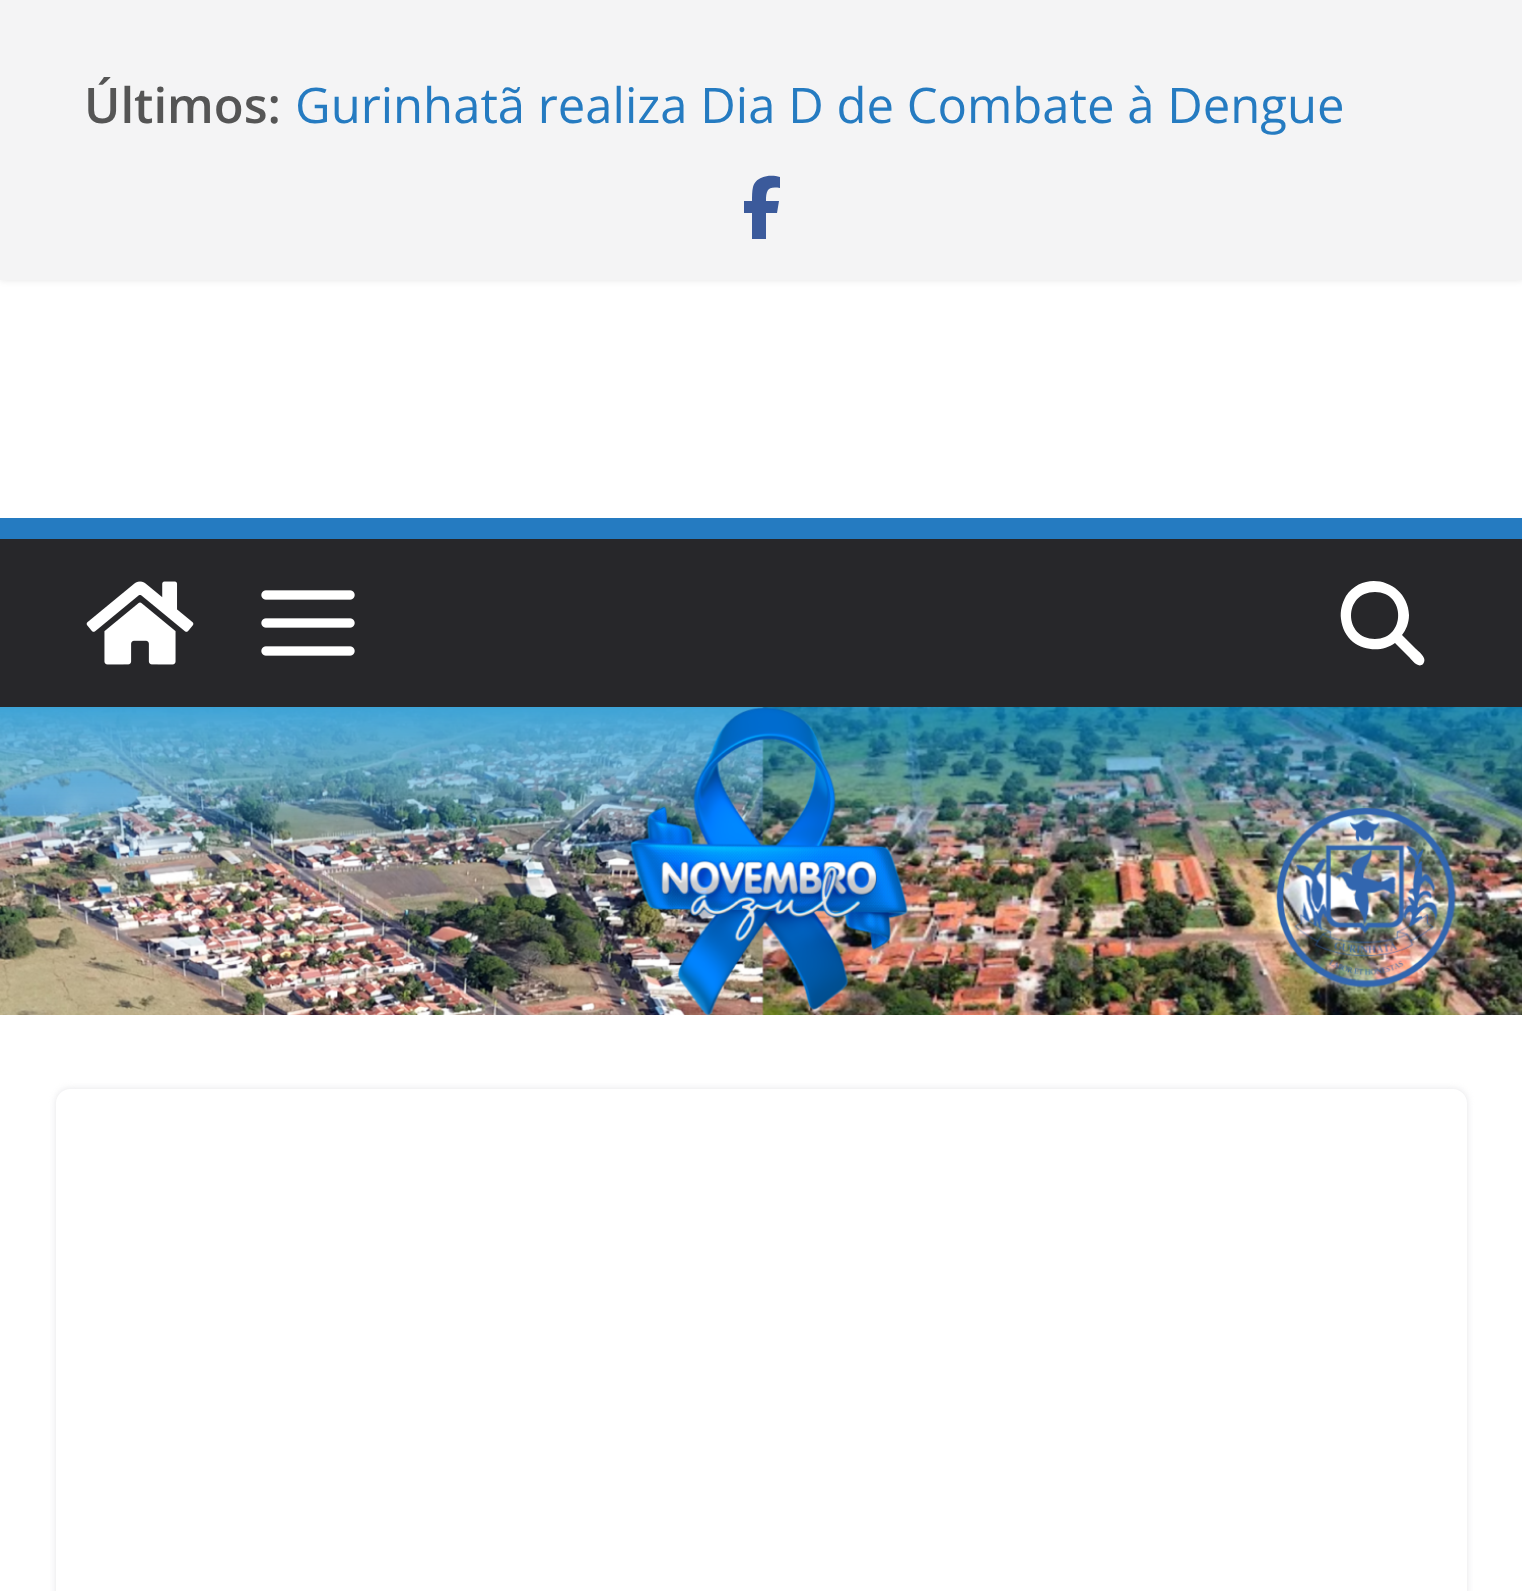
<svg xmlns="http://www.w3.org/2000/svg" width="1522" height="1591">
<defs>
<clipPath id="clip1"><path d="M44 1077h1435v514h-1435zm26 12h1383c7.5 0 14 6.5 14 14v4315c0 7.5-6.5 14-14 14h-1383c-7.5 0-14-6.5-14-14v-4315c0-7.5 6.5-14 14-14z" clip-rule="evenodd"/></clipPath>
</defs>
<rect width="100%" height="100%" fill="#fff"/>
<rect width="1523" height="280" fill="#0000001a" filter="blur(3.5px)"/>
<rect width="1522" height="280" fill="#f4f4f5"/>
<text x="84" y="123" style="font-family:Open Sans;font-size:49px;font-weight:600;fill:#555">Últimos:</text>
<text x="295" y="123" style="font-family:Open Sans;font-size:49px;fill:#257bc1">Gurinhatã realiza Dia D de Combate à Dengue</text>
<path d="M752 213v26v-26v26h14v-26h11l2-12h-13c0-11 2-15 14-13v-11c-10-3-24-1-27 10c-1 4-1 9-1 14h-8v12z" fill="#3b5a9b"/>
<rect y="539" width="1522" height="168" fill="#27272a"/>
<rect y="518" width="1522" height="21" fill="#257bc1"/>
<image x="86" y="581" width="108" height="84" href="media/1.png"/>
<image x="261" y="590" width="94" height="66" href="media/2.png"/>
<path d="M1409 615c0 8-3 15-7 20l14 14c3 3 12 9 7 15c-5 5-12-5-14-7l-14-14c-12 9-30 8-42-1c-7-6-11-14-12-23c-1-8 1-16 5-23c19-28 62-14 63 19zm-34 24c31 0 31-47 0-47c-32 0-32 47 0 47z" fill="#fff"/>
<image x="0" y="707" width="1522" height="308" href="media/3.png"/>
<g clip-path="url(#clip1)">
<rect x="56" y="1089" width="1411" height="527" rx="14" fill="#e4e4e7" filter="blur(3.5px)"/>
</g>
</svg>
